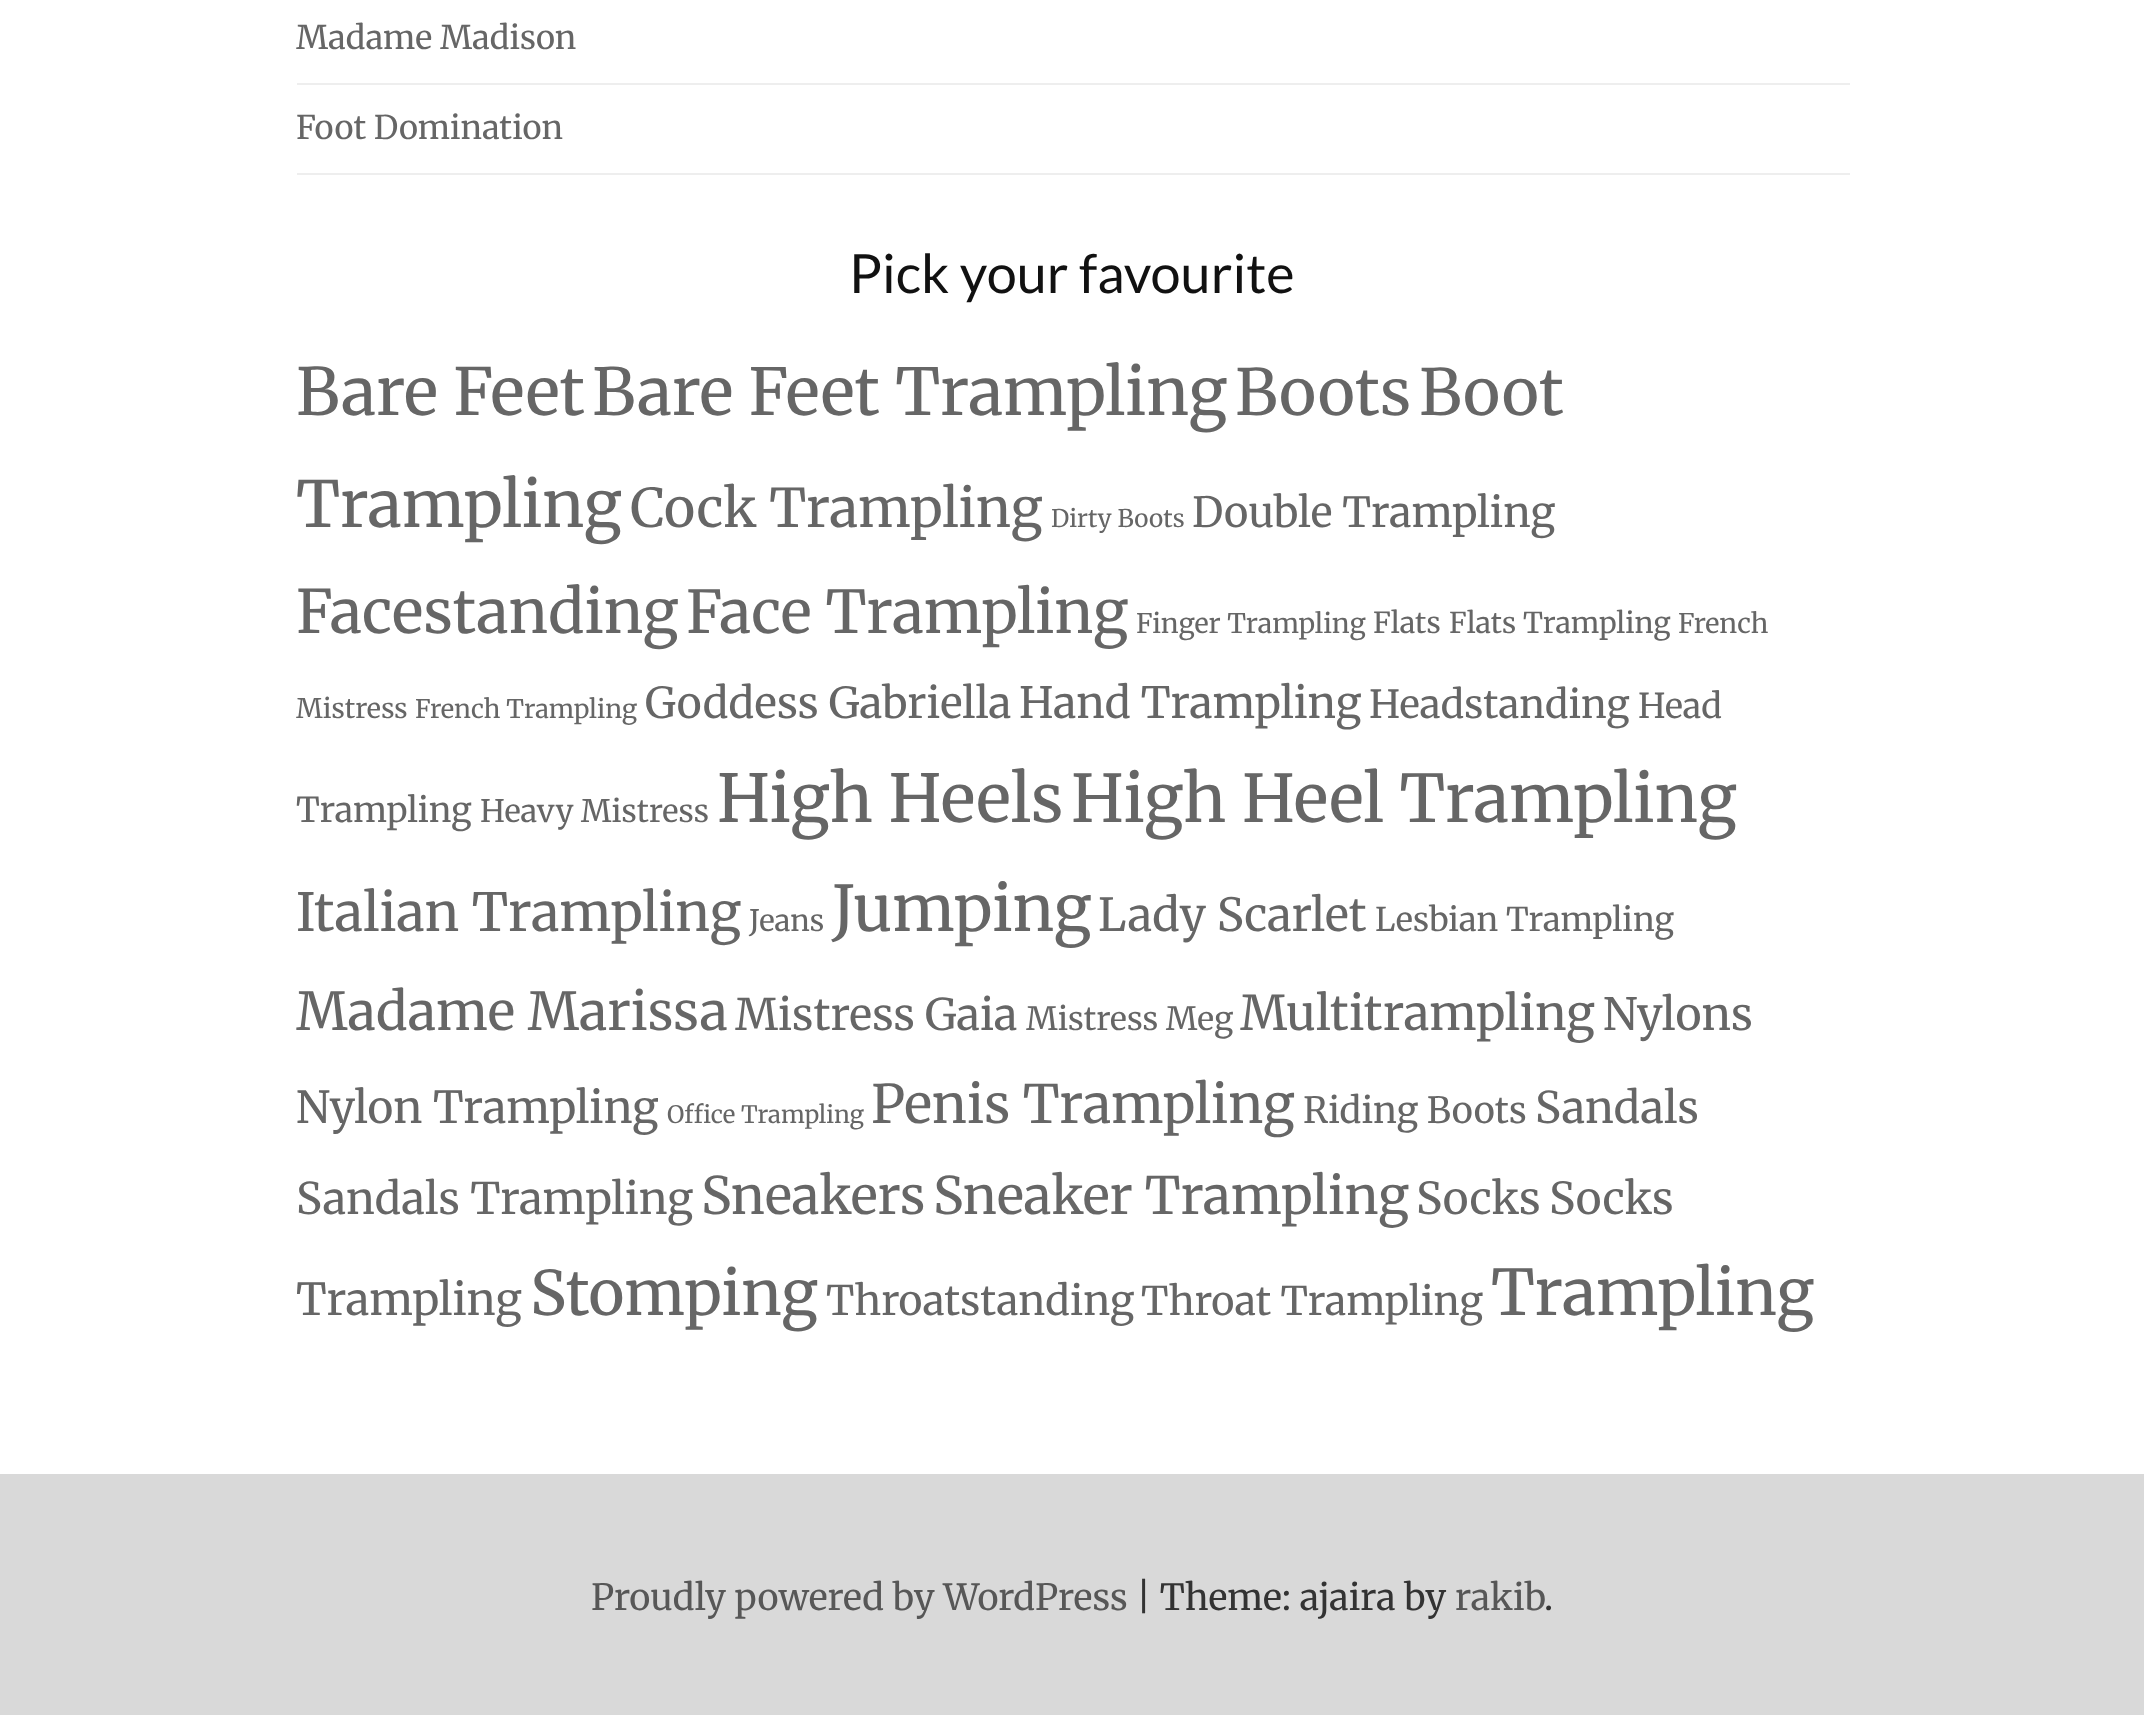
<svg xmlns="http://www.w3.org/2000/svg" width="2144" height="1715">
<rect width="100%" height="100%" fill="#fff"/>
<rect x="297" y="83" width="1553" height="2" fill="#eee"/>
<text x="296" y="49" style="font-family:Merriweather;font-size:32.5px;font-weight:300;fill:#666">Madame Madison</text>
<rect x="297" y="173" width="1553" height="2" fill="#eee"/>
<text x="296" y="139" style="font-family:Merriweather;font-size:32.5px;font-weight:300;fill:#666">Foot Domination</text>
<text x="849" y="293" style="font-family:Lato;font-size:54px;fill:#111">Pick your favourite</text>
<text x="296" y="415" style="font-family:Merriweather;font-size:65px;font-weight:300;fill:#666">Bare Feet</text>
<text x="592" y="415" style="font-family:Merriweather;font-size:64.75px;font-weight:300;fill:#666">Bare Feet Trampling</text>
<text x="1235" y="415" style="font-family:Merriweather;font-size:63.5px;font-weight:300;fill:#666">Boots</text>
<text x="1419" y="415" style="font-family:Merriweather;font-size:63.5px;font-weight:300;fill:#666">Boot</text>
<text x="296" y="527" style="font-family:Merriweather;font-size:63.5px;font-weight:300;fill:#666">Trampling</text>
<text x="630" y="527" style="font-family:Merriweather;font-size:53.25px;font-weight:300;fill:#666">Cock Trampling</text>
<text x="1051" y="527" style="font-family:Merriweather;font-size:24.25px;font-weight:300;fill:#666">Dirty Boots</text>
<text x="1192" y="527" style="font-family:Merriweather;font-size:41.5px;font-weight:300;fill:#666">Double Trampling</text>
<text x="296" y="633" style="font-family:Merriweather;font-size:59.75px;font-weight:300;fill:#666">Facestanding</text>
<text x="686" y="633" style="font-family:Merriweather;font-size:59px;font-weight:300;fill:#666">Face Trampling</text>
<text x="1136" y="633" style="font-family:Merriweather;font-size:27px;font-weight:300;fill:#666">Finger Trampling</text>
<text x="1373" y="633" style="font-family:Merriweather;font-size:29px;font-weight:300;fill:#666">Flats</text>
<text x="1449" y="633" style="font-family:Merriweather;font-size:28.75px;font-weight:300;fill:#666">Flats Trampling</text>
<text x="1678" y="633" style="font-family:Merriweather;font-size:27px;font-weight:300;fill:#666">French</text>
<text x="296" y="718" style="font-family:Merriweather;font-size:27px;font-weight:300;fill:#666">Mistress</text>
<text x="415" y="718" style="font-family:Merriweather;font-size:25.5px;font-weight:300;fill:#666">French Trampling</text>
<text x="645" y="718" style="font-family:Merriweather;font-size:42.5px;font-weight:300;fill:#666">Goddess Gabriella</text>
<text x="1019" y="718" style="font-family:Merriweather;font-size:43px;font-weight:300;fill:#666">Hand Trampling</text>
<text x="1369" y="718" style="font-family:Merriweather;font-size:38.75px;font-weight:300;fill:#666">Headstanding</text>
<text x="1638" y="718" style="font-family:Merriweather;font-size:34.25px;font-weight:300;fill:#666">Head</text>
<text x="296" y="822" style="font-family:Merriweather;font-size:34.25px;font-weight:300;fill:#666">Trampling</text>
<text x="480" y="822" style="font-family:Merriweather;font-size:31px;font-weight:300;fill:#666">Heavy Mistress</text>
<text x="717" y="822" style="font-family:Merriweather;font-size:66px;font-weight:300;fill:#666">High Heels</text>
<text x="1071" y="822" style="font-family:Merriweather;font-size:65.75px;font-weight:300;fill:#666">High Heel Trampling</text>
<text x="296" y="931" style="font-family:Merriweather;font-size:52.5px;font-weight:300;fill:#666">Italian Trampling</text>
<text x="749" y="931" style="font-family:Merriweather;font-size:29.5px;font-weight:300;fill:#666">Jeans</text>
<text x="832" y="931" style="font-family:Merriweather;font-size:63px;font-weight:300;fill:#666">Jumping</text>
<text x="1098" y="931" style="font-family:Merriweather;font-size:45.5px;font-weight:300;fill:#666">Lady Scarlet</text>
<text x="1375" y="931" style="font-family:Merriweather;font-size:32.75px;font-weight:300;fill:#666">Lesbian Trampling</text>
<text x="296" y="1030" style="font-family:Merriweather;font-size:52.25px;font-weight:300;fill:#666">Madame Marissa</text>
<text x="735" y="1030" style="font-family:Merriweather;font-size:43.5px;font-weight:300;fill:#666">Mistress Gaia</text>
<text x="1026" y="1030" style="font-family:Merriweather;font-size:32px;font-weight:300;fill:#666">Mistress Meg</text>
<text x="1240" y="1030" style="font-family:Merriweather;font-size:47.75px;font-weight:300;fill:#666">Multitrampling</text>
<text x="1603" y="1030" style="font-family:Merriweather;font-size:44.5px;font-weight:300;fill:#666">Nylons</text>
<text x="296" y="1123" style="font-family:Merriweather;font-size:44px;font-weight:300;fill:#666">Nylon Trampling</text>
<text x="667" y="1123" style="font-family:Merriweather;font-size:24px;font-weight:300;fill:#666">Office Trampling</text>
<text x="871" y="1123" style="font-family:Merriweather;font-size:53px;font-weight:300;fill:#666">Penis Trampling</text>
<text x="1303" y="1123" style="font-family:Merriweather;font-size:36px;font-weight:300;fill:#666">Riding Boots</text>
<text x="1535" y="1123" style="font-family:Merriweather;font-size:43.5px;font-weight:300;fill:#666">Sandals</text>
<text x="296" y="1214" style="font-family:Merriweather;font-size:43.5px;font-weight:300;fill:#666">Sandals Trampling</text>
<text x="701" y="1214" style="font-family:Merriweather;font-size:51.5px;font-weight:300;fill:#666">Sneakers</text>
<text x="933" y="1214" style="font-family:Merriweather;font-size:51.5px;font-weight:300;fill:#666">Sneaker Trampling</text>
<text x="1416" y="1214" style="font-family:Merriweather;font-size:44px;font-weight:300;fill:#666">Socks</text>
<text x="1549" y="1214" style="font-family:Merriweather;font-size:44px;font-weight:300;fill:#666">Socks</text>
<text x="296" y="1315" style="font-family:Merriweather;font-size:44px;font-weight:300;fill:#666">Trampling</text>
<text x="530" y="1315" style="font-family:Merriweather;font-size:61.25px;font-weight:300;fill:#666">Stomping</text>
<text x="826" y="1315" style="font-family:Merriweather;font-size:40.75px;font-weight:300;fill:#666">Throatstanding</text>
<text x="1141" y="1315" style="font-family:Merriweather;font-size:39.5px;font-weight:300;fill:#666">Throat Trampling</text>
<text x="1491" y="1315" style="font-family:Merriweather;font-size:63px;font-weight:300;fill:#666">Trampling</text>
<rect y="1474" width="2144" height="241" fill="#d9d9d9"/>
<text x="591" y="1610" style="font-family:Merriweather;font-size:36px;font-weight:300;fill:#575757">Proudly powered by WordPress</text>
<text x="1136" y="1610" style="font-family:Merriweather;font-size:36px;font-weight:300;fill:#333">| Theme: ajaira by</text>
<text x="1455" y="1610" style="font-family:Merriweather;font-size:36px;font-weight:300;fill:#575757">rakib</text>
<text x="1544" y="1610" style="font-family:Merriweather;font-size:36px;font-weight:300;fill:#333">.</text>
</svg>
